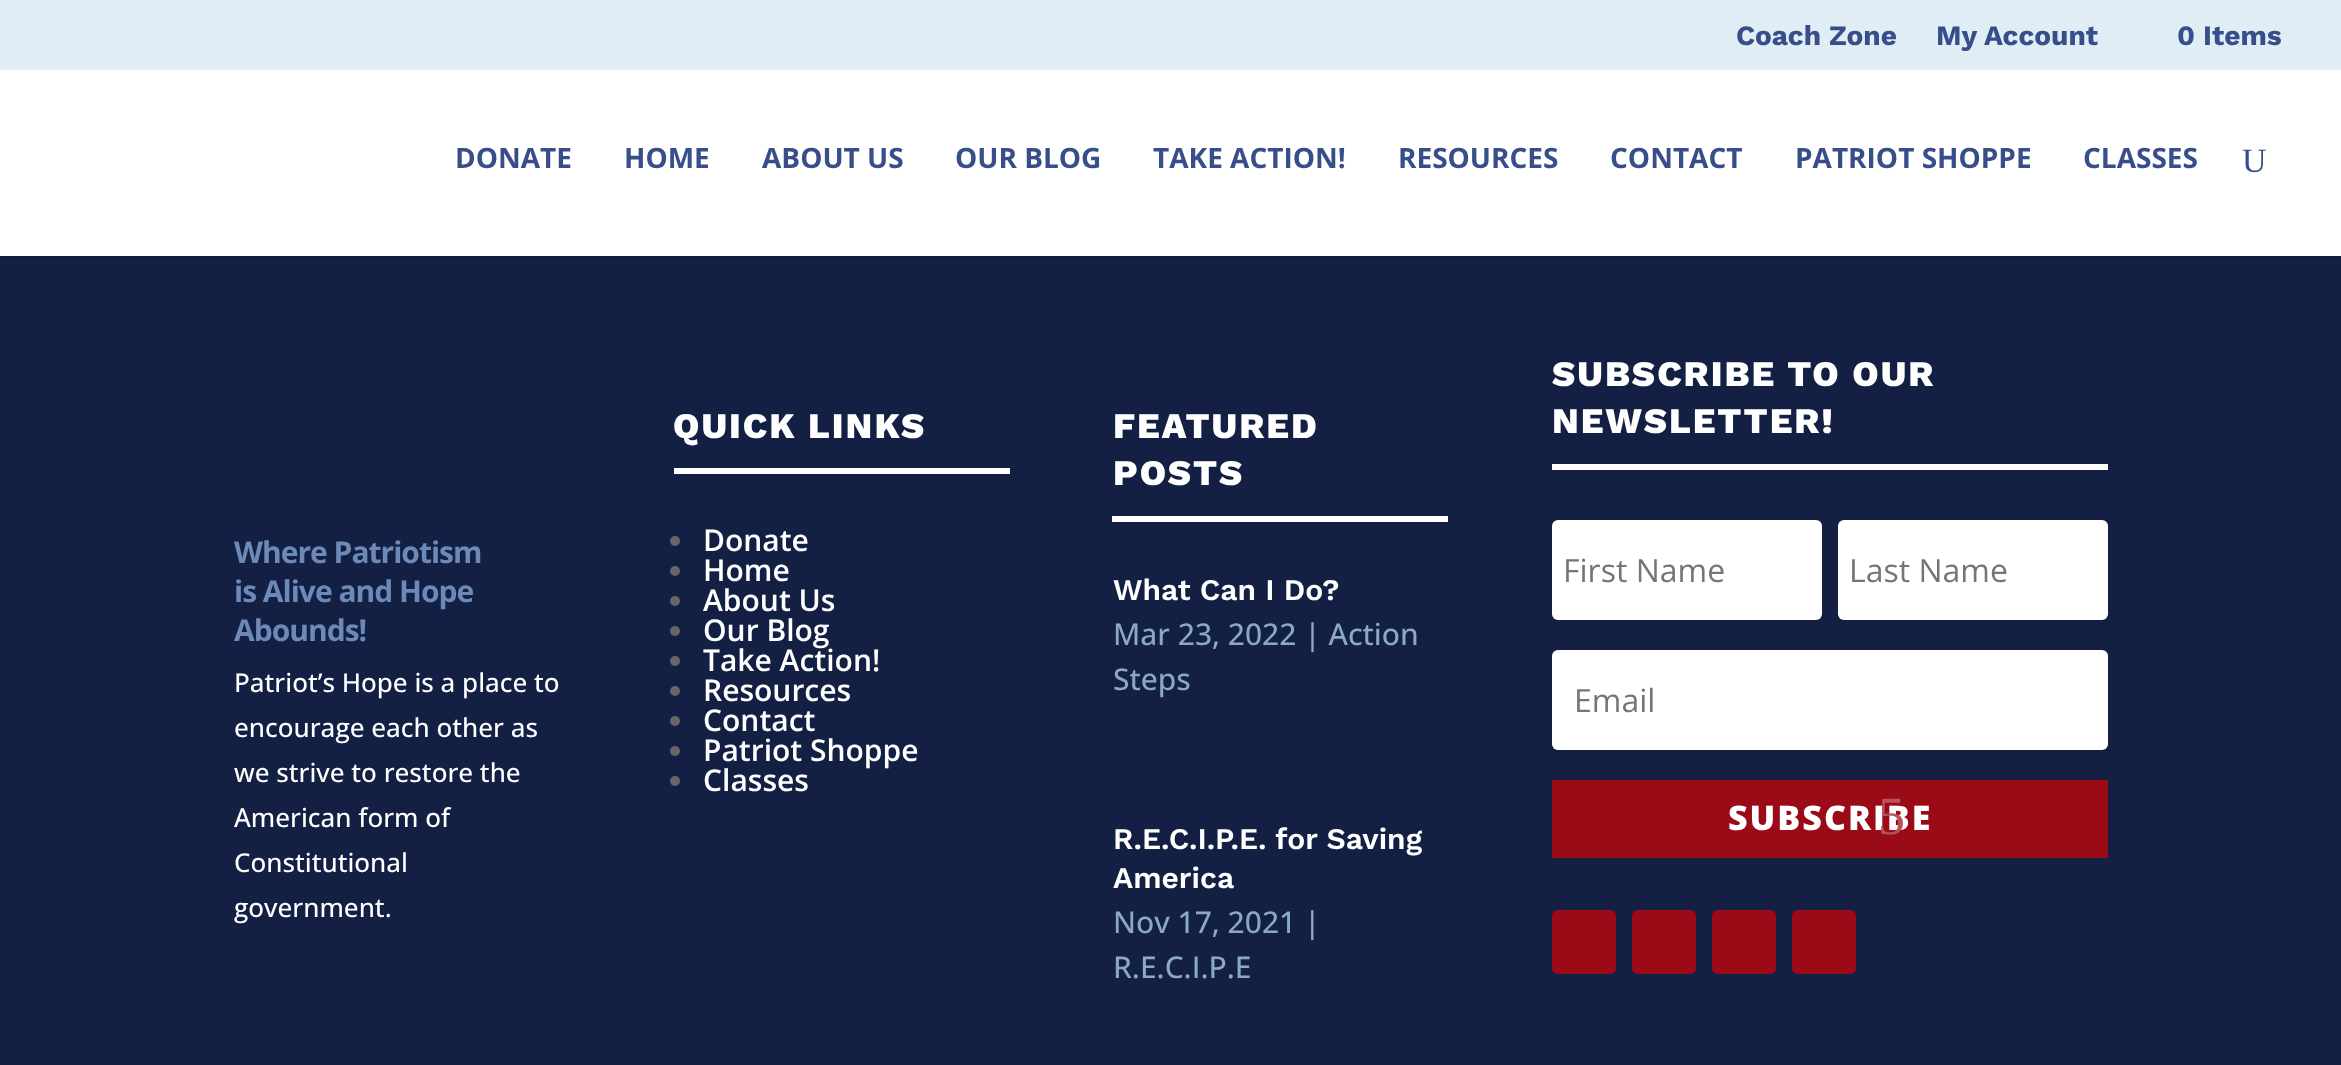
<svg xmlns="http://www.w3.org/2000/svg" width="2341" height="1065">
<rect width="100%" height="100%" fill="#132044"/>
<rect width="2341" height="70" fill="#e1edf4"/>
<text x="1736" y="45" style="font-family:Work Sans;font-size:28px;font-weight:bold;fill:#374e8a">Coach Zone</text>
<text x="1936" y="45" style="font-family:Work Sans;font-size:28px;font-weight:bold;fill:#374e8a">My Account</text>
<text x="2177" y="45" style="font-family:Work Sans;font-size:28px;font-weight:bold;fill:#374e8a">0 Items</text>
<rect y="256" width="2341" height="2" fill="#111d3d"/>
<rect y="70" width="2341" height="186" fill="#fff"/>
<text x="455" y="168" style="font-family:Open Sans;font-size:28px;font-weight:bold;fill:#374e8a">DONATE</text>
<text x="624" y="168" style="font-family:Open Sans;font-size:28px;font-weight:bold;fill:#374e8a">HOME</text>
<text x="762" y="168" style="font-family:Open Sans;font-size:28px;font-weight:bold;fill:#374e8a">ABOUT US</text>
<text x="955" y="168" style="font-family:Open Sans;font-size:28px;font-weight:bold;fill:#374e8a">OUR BLOG</text>
<text x="1153" y="168" style="font-family:Open Sans;font-size:28px;font-weight:bold;fill:#374e8a">TAKE ACTION!</text>
<text x="1398" y="168" style="font-family:Open Sans;font-size:28px;font-weight:bold;fill:#374e8a">RESOURCES</text>
<text x="1610" y="168" style="font-family:Open Sans;font-size:28px;font-weight:bold;fill:#374e8a">CONTACT</text>
<text x="1795" y="168" style="font-family:Open Sans;font-size:28px;font-weight:bold;fill:#374e8a">PATRIOT SHOPPE</text>
<text x="2083" y="168" style="font-family:Open Sans;font-size:28px;font-weight:bold;fill:#374e8a">CLASSES</text>
<text x="2242" y="172" style="font-family:Liberation Serif;font-size:34px;fill:#374e8a">U</text>
<text x="234" y="563" style="font-family:Open Sans;font-size:30px;font-weight:bold;letter-spacing:-1px;fill:#6c89b7">Where Patriotism</text>
<text x="234" y="602" style="font-family:Open Sans;font-size:30px;font-weight:bold;letter-spacing:-1px;fill:#6c89b7">is Alive and Hope</text>
<text x="234" y="641" style="font-family:Open Sans;font-size:30px;font-weight:bold;letter-spacing:-1px;fill:#6c89b7">Abounds!</text>
<text x="234" y="692" style="font-family:Open Sans;font-size:26px;font-weight:500;fill:#fff">Patriot’s Hope is a place to</text>
<text x="234" y="737" style="font-family:Open Sans;font-size:26px;font-weight:500;fill:#fff">encourage each other as</text>
<text x="234" y="782" style="font-family:Open Sans;font-size:26px;font-weight:500;fill:#fff">we strive to restore the</text>
<text x="234" y="827" style="font-family:Open Sans;font-size:26px;font-weight:500;fill:#fff">American form of</text>
<text x="234" y="872" style="font-family:Open Sans;font-size:26px;font-weight:500;fill:#fff">Constitutional</text>
<text x="234" y="917" style="font-family:Open Sans;font-size:26px;font-weight:500;fill:#fff">government.</text>
<rect x="674" y="468" width="336" height="6" fill="#fff"/>
<text x="673" y="438" style="font-family:Work Sans;font-size:36px;font-weight:800;letter-spacing:2px;fill:#fff">QUICK LINKS</text>
<circle cx="675" cy="541" r="5" fill="#666"/>
<text x="703" y="551" style="font-family:Open Sans;font-size:30px;font-weight:600;fill:#fff">Donate</text>
<circle cx="675" cy="571" r="5" fill="#666"/>
<text x="703" y="581" style="font-family:Open Sans;font-size:30px;font-weight:600;fill:#fff">Home</text>
<circle cx="675" cy="601" r="5" fill="#666"/>
<text x="703" y="611" style="font-family:Open Sans;font-size:30px;font-weight:600;fill:#fff">About Us</text>
<circle cx="675" cy="631" r="5" fill="#666"/>
<text x="703" y="641" style="font-family:Open Sans;font-size:30px;font-weight:600;fill:#fff">Our Blog</text>
<circle cx="675" cy="661" r="5" fill="#666"/>
<text x="703" y="671" style="font-family:Open Sans;font-size:30px;font-weight:600;fill:#fff">Take Action!</text>
<circle cx="675" cy="691" r="5" fill="#666"/>
<text x="703" y="701" style="font-family:Open Sans;font-size:30px;font-weight:600;fill:#fff">Resources</text>
<circle cx="675" cy="721" r="5" fill="#666"/>
<text x="703" y="731" style="font-family:Open Sans;font-size:30px;font-weight:600;fill:#fff">Contact</text>
<circle cx="675" cy="751" r="5" fill="#666"/>
<text x="703" y="761" style="font-family:Open Sans;font-size:30px;font-weight:600;fill:#fff">Patriot Shoppe</text>
<circle cx="675" cy="781" r="5" fill="#666"/>
<text x="703" y="791" style="font-family:Open Sans;font-size:30px;font-weight:600;fill:#fff">Classes</text>
<rect x="1112" y="516" width="336" height="6" fill="#fff"/>
<text x="1113" y="438" style="font-family:Work Sans;font-size:36px;font-weight:800;letter-spacing:2px;fill:#fff">FEATURED</text>
<text x="1113" y="485" style="font-family:Work Sans;font-size:36px;font-weight:800;letter-spacing:2px;fill:#fff">POSTS</text>
<text x="1113" y="600" style="font-family:Work Sans;font-size:30px;font-weight:600;fill:#fff">What Can I Do?</text>
<text x="1113" y="645" style="font-family:Open Sans;font-size:30px;font-weight:500;fill:#8ba9c1">Mar 23, 2022 | Action</text>
<text x="1113" y="690" style="font-family:Open Sans;font-size:30px;font-weight:500;fill:#8ba9c1">Steps</text>
<text x="1113" y="849" style="font-family:Work Sans;font-size:30px;font-weight:600;fill:#fff">R.E.C.I.P.E. for Saving</text>
<text x="1113" y="888" style="font-family:Work Sans;font-size:30px;font-weight:600;fill:#fff">America</text>
<text x="1113" y="933" style="font-family:Open Sans;font-size:30px;font-weight:500;fill:#8ba9c1">Nov 17, 2021 |</text>
<text x="1113" y="978" style="font-family:Open Sans;font-size:30px;font-weight:500;fill:#8ba9c1">R.E.C.I.P.E</text>
<rect x="1552" y="464" width="556" height="6" fill="#fff"/>
<text x="1552" y="386" style="font-family:Work Sans;font-size:36px;font-weight:800;letter-spacing:2px;fill:#fff">SUBSCRIBE TO OUR</text>
<text x="1552" y="433" style="font-family:Work Sans;font-size:36px;font-weight:800;letter-spacing:2px;fill:#fff">NEWSLETTER!</text>
<rect x="1552" y="520" width="270" height="100" rx="6" fill="#fff"/>
<text x="1563" y="582" style="font-family:Open Sans;font-size:32px;fill:#757575">First Name</text>
<rect x="1838" y="520" width="270" height="100" rx="6" fill="#fff"/>
<text x="1849" y="582" style="font-family:Open Sans;font-size:32px;fill:#757575">Last Name</text>
<rect x="1552" y="650" width="556" height="100" rx="6" fill="#fff"/>
<text x="1574" y="712" style="font-family:Open Sans;font-size:32px;fill:#757575">Email</text>
<rect x="1552" y="780" width="556" height="78" fill="#9b0b17"/>
<text x="1728" y="830" style="font-family:Open Sans;font-size:34px;font-weight:800;letter-spacing:2px;fill:#fff">SUBSCRIBE</text>
<text x="1878" y="834" style="font-family:Liberation Serif;font-size:54px;letter-spacing:2px;fill:#b8525b">5</text>
<rect x="1552" y="910" width="64" height="64" rx="6" fill="#9b0b17"/>
<rect x="1632" y="910" width="64" height="64" rx="6" fill="#9b0b17"/>
<rect x="1712" y="910" width="64" height="64" rx="6" fill="#9b0b17"/>
<rect x="1792" y="910" width="64" height="64" rx="6" fill="#9b0b17"/>
</svg>
